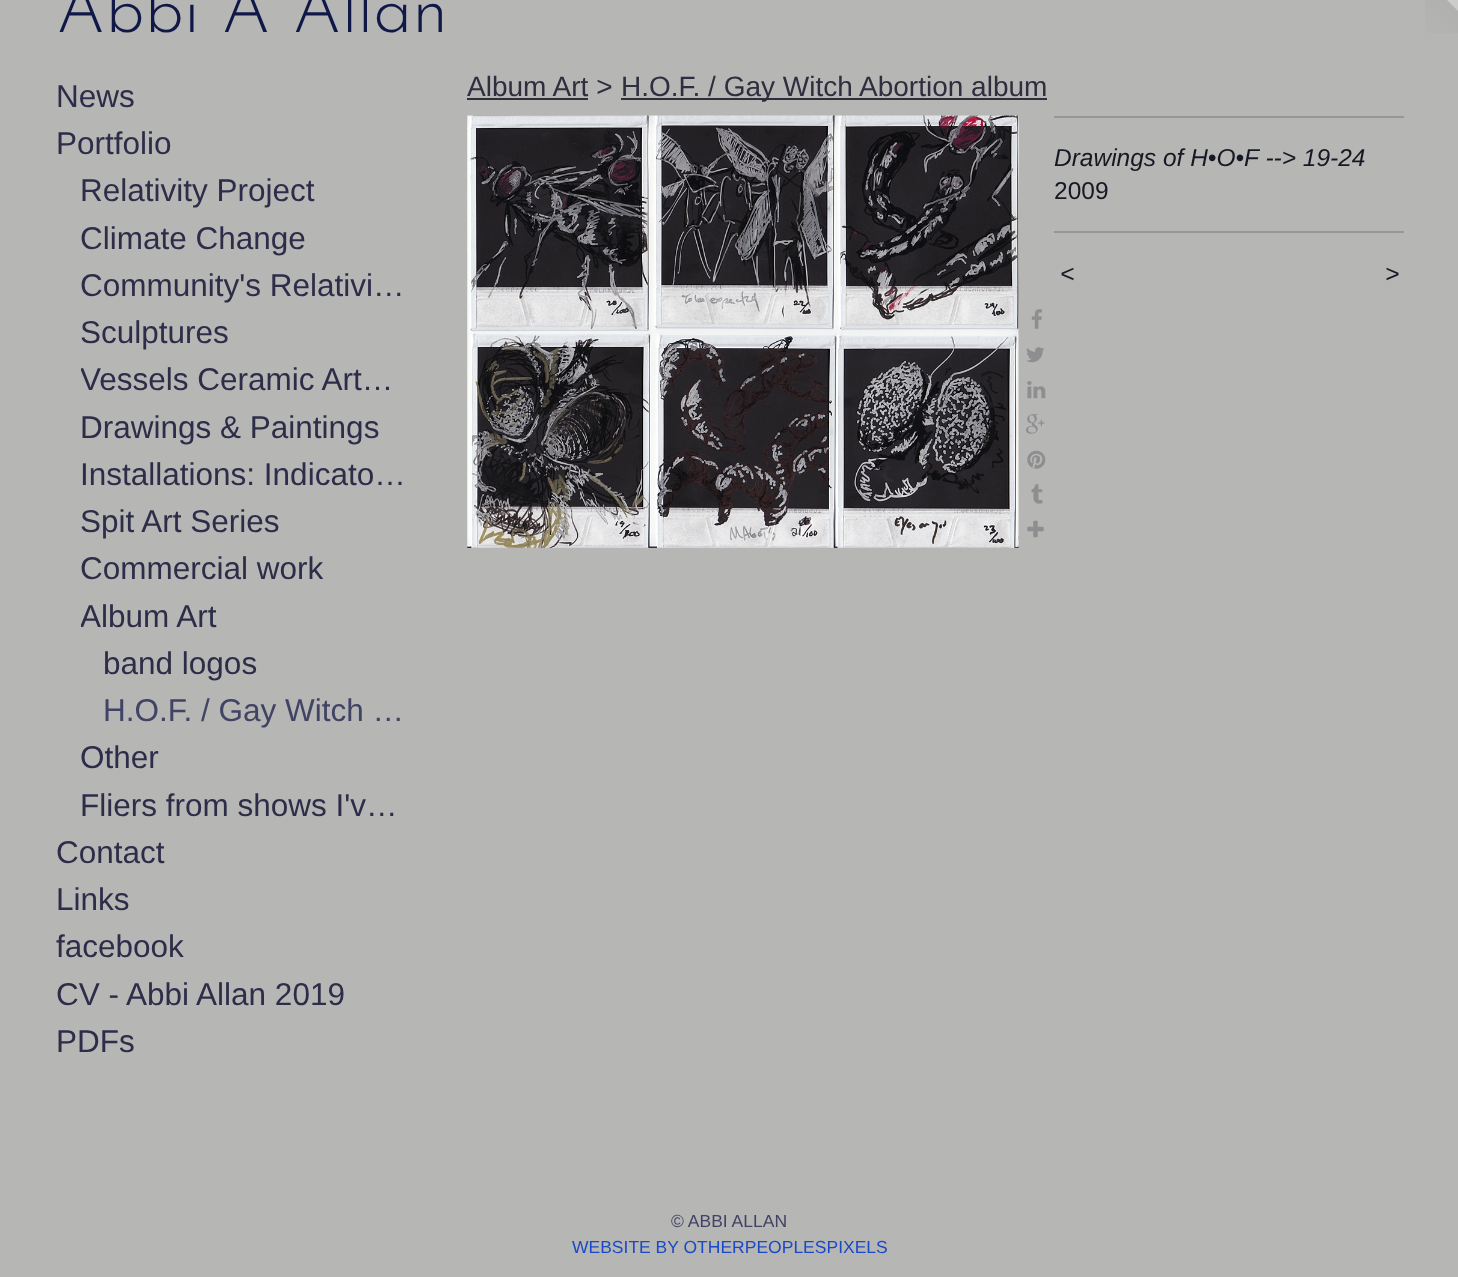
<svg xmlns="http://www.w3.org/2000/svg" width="1458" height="1277">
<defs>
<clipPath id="clip1"><rect x="81" y="357" width="325" height="47"/></clipPath>
<clipPath id="clip2"><rect x="81" y="593" width="325" height="48"/></clipPath>
</defs>
<rect width="100%" height="100%" fill="#b6b6b5"/>
<text x="56" y="32" style="font-family:Josefin Sans;font-size:70px;font-weight:100;fill:#101847">Abbi A Allan</text>
<image x="1425" y="0" width="33" height="33" href="media/1.png"/>
<text x="56" y="107" style="font-family:Liberation Sans;font-size:31.5px;fill:#2d2d49">News</text>
<text x="56" y="154" style="font-family:Liberation Sans;font-size:31.5px;fill:#2d2d49">Portfolio</text>
<text x="80" y="201" style="font-family:Liberation Sans;font-size:31.5px;fill:#2d2d49">Relativity Project</text>
<text x="80" y="249" style="font-family:Liberation Sans;font-size:31.5px;fill:#2d2d49">Climate Change</text>
<text x="80" y="296" style="font-family:Liberation Sans;font-size:31.5px;fill:#2d2d49">Community's Relativi…</text>
<text x="80" y="343" style="font-family:Liberation Sans;font-size:31.5px;fill:#2d2d49">Sculptures</text>
<g clip-path="url(#clip1)">
<text x="80" y="390" style="font-family:Liberation Sans;font-size:31.5px;fill:#2d2d49">Vessels Ceramic Art…</text>
</g>
<text x="80" y="438" style="font-family:Liberation Sans;font-size:31.5px;fill:#2d2d49">Drawings &amp; Paintings</text>
<text x="80" y="485" style="font-family:Liberation Sans;font-size:31.5px;fill:#2d2d49">Installations: Indicato…</text>
<text x="80" y="532" style="font-family:Liberation Sans;font-size:31.5px;fill:#2d2d49">Spit Art Series</text>
<text x="80" y="579" style="font-family:Liberation Sans;font-size:31.5px;fill:#2d2d49">Commercial work</text>
<g clip-path="url(#clip2)">
<text x="80" y="627" style="font-family:Liberation Sans;font-size:31.5px;fill:#2d2d49">Album Art</text>
</g>
<text x="103" y="674" style="font-family:Liberation Sans;font-size:31.5px;fill:#2d2d49">band logos</text>
<text x="103" y="721" style="font-family:Liberation Sans;font-size:31.5px;fill:#404364">H.O.F. / Gay Witch …</text>
<text x="80" y="768" style="font-family:Liberation Sans;font-size:31.5px;fill:#2d2d49">Other</text>
<text x="80" y="816" style="font-family:Liberation Sans;font-size:31.5px;fill:#2d2d49">Fliers from shows I'v…</text>
<text x="56" y="863" style="font-family:Liberation Sans;font-size:31.5px;fill:#2d2d49">Contact</text>
<text x="56" y="910" style="font-family:Liberation Sans;font-size:31.5px;fill:#2d2d49">Links</text>
<text x="56" y="957" style="font-family:Liberation Sans;font-size:31.5px;fill:#2d2d49">facebook</text>
<text x="56" y="1005" style="font-family:Liberation Sans;font-size:31.5px;fill:#2d2d49">CV - Abbi Allan 2019</text>
<text x="56" y="1052" style="font-family:Liberation Sans;font-size:31.5px;fill:#2d2d49">PDFs</text>
<text x="467" y="96" style="font-family:Liberation Sans;font-size:28px;fill:#2e2e3e">Album Art &gt;</text>
<rect x="467" y="98" width="121" height="2" fill="#2e2e3e"/>
<rect x="621" y="98" width="426" height="2" fill="#2e2e3e"/>
<text x="621" y="96" style="font-family:Liberation Sans;font-size:28px;fill:#2e2e3e">H.O.F. / Gay Witch Abortion album</text>
<image x="467" y="115" width="552" height="433" href="media/2.png"/>
<image x="1031" y="309" width="11" height="20" href="media/3.png"/>
<image x="1026" y="347" width="18" height="16" href="media/4.png"/>
<image x="1027" y="381" width="19" height="18" href="media/5.png"/>
<image x="1026" y="414" width="19" height="20" href="media/6.png"/>
<image x="1027" y="450" width="19" height="19" href="media/7.png"/>
<image x="1031" y="484" width="12" height="20" href="media/8.png"/>
<image x="1027" y="520" width="17" height="18" href="media/9.png"/>
<rect x="1054" y="116" width="350" height="2" fill="#969798"/>
<text x="1054" y="166" style="font-family:Liberation Sans;font-size:24.5px;font-style:italic;fill:#161923">Drawings of H•O•F --&gt; 19-24</text>
<text x="1054" y="199" style="font-family:Liberation Sans;font-size:24.5px;fill:#161923">2009</text>
<rect x="1054" y="231" width="350" height="2" fill="#969798"/>
<text x="1060" y="282" style="font-family:Liberation Sans;font-size:24.5px;font-style:italic;letter-spacing:2px;fill:#161923">&lt;</text>
<text x="1385" y="282" style="font-family:Liberation Sans;font-size:24.5px;font-style:italic;letter-spacing:2px;fill:#161923">&gt;</text>
<text x="671" y="1227" style="font-family:Liberation Sans;font-size:17.5px;fill:#404364">© ABBI ALLAN</text>
<text x="572" y="1253" style="font-family:Liberation Sans;font-size:17.5px;fill:#1a49c7">WEBSITE BY OTHERPEOPLESPIXELS</text>
</svg>
